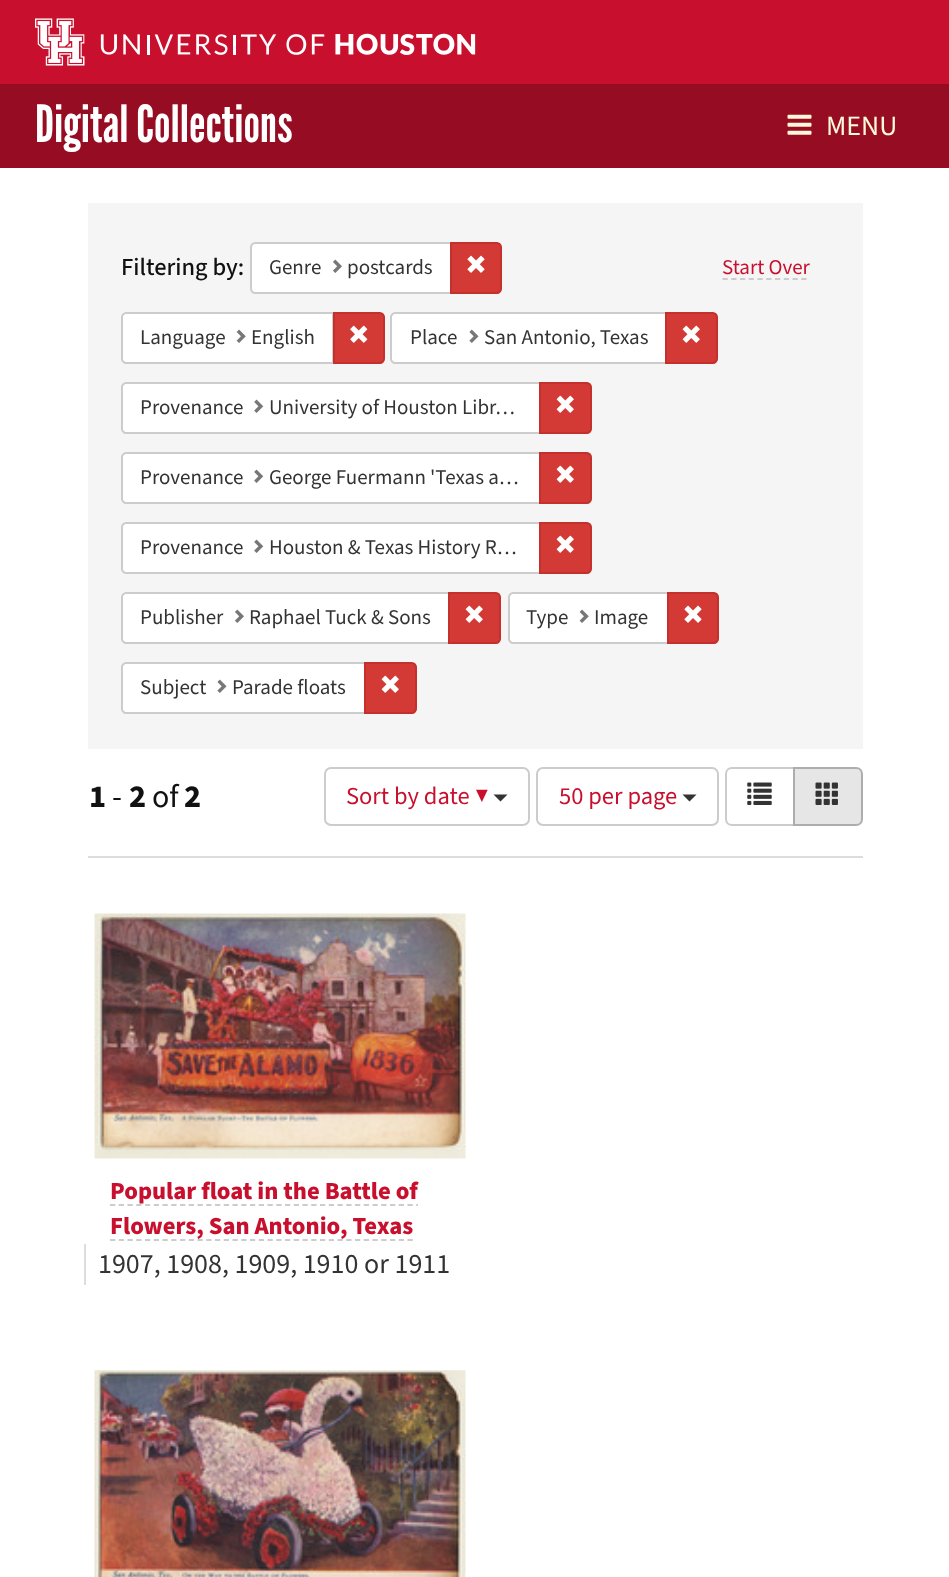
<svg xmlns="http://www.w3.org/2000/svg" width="949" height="1577">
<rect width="100%" height="100%" fill="#fff"/>
<rect width="949" height="84" fill="#c8102e"/>
<image x="35" y="18" width="441" height="48" href="media/1.png"/>
<rect y="84" width="949" height="84" fill="#960c22"/>
<text x="35" y="142" style="font-family:League Gothic;font-size:51.25px;fill:#fff">Digital Collections</text>
<image x="787" y="114" width="25" height="21" href="media/2.png"/>
<text x="826" y="135" style="font-family:'Source Sans 3';font-size:28px;fill:#fff9d9">MENU</text>
<rect x="88" y="203" width="775" height="546" fill="#f5f5f5"/>
<text x="121" y="275" style="font-family:'Source Sans 3';font-size:24.5px;font-weight:500;fill:#111">Filtering by:</text>
<path d="M255 243h196v50h-196c-2 0-4-2-4-4v-42c0-2 2-4 4-4z" fill="#fff" stroke="#ccc" stroke-width="2"/>
<text x="269" y="274" style="font-family:'Source Sans 3';font-size:21px;fill:#333">Genre</text>
<image x="333" y="259" width="9" height="14" href="media/3.png"/>
<text x="347" y="274" style="font-family:'Source Sans 3';font-size:21px;fill:#333">postcards</text>
<path d="M451 243h46c2 0 4 2 4 4v42c0 2-2 4-4 4h-46z" fill="#d33a35" stroke="#c4302b" stroke-width="2"/>
<image x="467" y="255" width="18" height="18" href="media/4.png"/>
<text x="722" y="274" style="font-family:'Source Sans 3';font-size:21px;fill:#c8102e">Start Over</text>
<path d="M722.5 279h87.5" fill="none" stroke="#ccc" stroke-width="1.8" stroke-dasharray="5.25 3.5"/>
<path d="M126 313h207v50h-207c-2 0-4-2-4-4v-42c0-2 2-4 4-4z" fill="#fff" stroke="#ccc" stroke-width="2"/>
<text x="140" y="344" style="font-family:'Source Sans 3';font-size:21px;fill:#333">Language</text>
<image x="236" y="329" width="10" height="14" href="media/5.png"/>
<text x="251" y="344" style="font-family:'Source Sans 3';font-size:21px;fill:#333">English</text>
<path d="M334 313h46c2 0 4 2 4 4v42c0 2-2 4-4 4h-46z" fill="#d33a35" stroke="#c4302b" stroke-width="2"/>
<image x="350" y="325" width="18" height="18" href="media/6.png"/>
<path d="M395 313h271v50h-271c-2 0-4-2-4-4v-42c0-2 2-4 4-4z" fill="#fff" stroke="#ccc" stroke-width="2"/>
<text x="410" y="344" style="font-family:'Source Sans 3';font-size:21px;fill:#333">Place</text>
<image x="469" y="329" width="10" height="14" href="media/7.png"/>
<text x="484" y="344" style="font-family:'Source Sans 3';font-size:21px;fill:#333">San Antonio, Texas</text>
<path d="M666 313h47c2 0 4 2 4 4v42c0 2-2 4-4 4h-47z" fill="#d33a35" stroke="#c4302b" stroke-width="2"/>
<image x="682" y="325" width="18" height="18" href="media/8.png"/>
<path d="M126 383h414v50h-414c-2 0-4-2-4-4v-42c0-2 2-4 4-4z" fill="#fff" stroke="#ccc" stroke-width="2"/>
<text x="140" y="414" style="font-family:'Source Sans 3';font-size:21px;fill:#333">Provenance</text>
<image x="254" y="399" width="10" height="14" href="media/9.png"/>
<text x="269" y="414" style="font-family:'Source Sans 3';font-size:21px;fill:#333">University of Houston Libr…</text>
<path d="M540 383h47c2 0 4 2 4 4v42c0 2-2 4-4 4h-47z" fill="#d33a35" stroke="#c4302b" stroke-width="2"/>
<image x="556" y="395" width="18" height="18" href="media/8.png"/>
<path d="M126 453h414v50h-414c-2 0-4-2-4-4v-42c0-2 2-4 4-4z" fill="#fff" stroke="#ccc" stroke-width="2"/>
<text x="140" y="484" style="font-family:'Source Sans 3';font-size:21px;fill:#333">Provenance</text>
<image x="254" y="469" width="10" height="14" href="media/9.png"/>
<text x="269" y="484" style="font-family:'Source Sans 3';font-size:21px;fill:#333">George Fuermann 'Texas a…</text>
<path d="M540 453h47c2 0 4 2 4 4v42c0 2-2 4-4 4h-47z" fill="#d33a35" stroke="#c4302b" stroke-width="2"/>
<image x="556" y="465" width="18" height="18" href="media/8.png"/>
<path d="M126 523h414v50h-414c-2 0-4-2-4-4v-42c0-2 2-4 4-4z" fill="#fff" stroke="#ccc" stroke-width="2"/>
<text x="140" y="554" style="font-family:'Source Sans 3';font-size:21px;fill:#333">Provenance</text>
<image x="254" y="539" width="10" height="14" href="media/9.png"/>
<text x="269" y="554" style="font-family:'Source Sans 3';font-size:21px;fill:#333">Houston &amp; Texas History R…</text>
<path d="M540 523h47c2 0 4 2 4 4v42c0 2-2 4-4 4h-47z" fill="#d33a35" stroke="#c4302b" stroke-width="2"/>
<image x="556" y="535" width="18" height="18" href="media/8.png"/>
<path d="M126 593h323v50h-323c-2 0-4-2-4-4v-42c0-2 2-4 4-4z" fill="#fff" stroke="#ccc" stroke-width="2"/>
<text x="140" y="624" style="font-family:'Source Sans 3';font-size:21px;fill:#333">Publisher</text>
<image x="235" y="609" width="9" height="14" href="media/3.png"/>
<text x="249" y="624" style="font-family:'Source Sans 3';font-size:21px;fill:#333">Raphael Tuck &amp; Sons</text>
<path d="M449 593h47c2 0 4 2 4 4v42c0 2-2 4-4 4h-47z" fill="#d33a35" stroke="#c4302b" stroke-width="2"/>
<image x="465" y="605" width="18" height="18" href="media/8.png"/>
<path d="M513 593h155v50h-155c-2 0-4-2-4-4v-42c0-2 2-4 4-4z" fill="#fff" stroke="#ccc" stroke-width="2"/>
<text x="526" y="624" style="font-family:'Source Sans 3';font-size:21px;fill:#333">Type</text>
<image x="579" y="609" width="10" height="14" href="media/5.png"/>
<text x="594" y="624" style="font-family:'Source Sans 3';font-size:21px;fill:#333">Image</text>
<path d="M668 593h46c2 0 4 2 4 4v42c0 2-2 4-4 4h-46z" fill="#d33a35" stroke="#c4302b" stroke-width="2"/>
<image x="684" y="605" width="18" height="18" href="media/4.png"/>
<path d="M126 663h239v50h-239c-2 0-4-2-4-4v-42c0-2 2-4 4-4z" fill="#fff" stroke="#ccc" stroke-width="2"/>
<text x="140" y="694" style="font-family:'Source Sans 3';font-size:21px;fill:#333">Subject</text>
<image x="217" y="679" width="10" height="14" href="media/7.png"/>
<text x="232" y="694" style="font-family:'Source Sans 3';font-size:21px;fill:#333">Parade floats</text>
<path d="M365 663h47c2 0 4 2 4 4v42c0 2-2 4-4 4h-47z" fill="#d33a35" stroke="#c4302b" stroke-width="2"/>
<image x="381" y="675" width="18" height="18" href="media/8.png"/>
<rect x="88" y="856" width="775" height="2" fill="#ddd"/>
<text x="89" y="807" style="font-family:'Source Sans 3';font-size:32px;font-weight:800;fill:#111">1</text>
<text x="112" y="807" style="font-family:'Source Sans 3';font-size:32px;fill:#111">-</text>
<text x="129" y="807" style="font-family:'Source Sans 3';font-size:32px;font-weight:800;fill:#111">2</text>
<text x="152" y="807" style="font-family:'Source Sans 3';font-size:32px;fill:#111">of</text>
<text x="184" y="807" style="font-family:'Source Sans 3';font-size:32px;font-weight:800;fill:#111">2</text>
<rect x="325" y="768" width="204" height="57" rx="6" fill="none" stroke="#ccc" stroke-width="2"/>
<text x="346" y="804" style="font-family:'Source Sans 3';font-size:24.5px;fill:#c8102e">Sort by date ▼</text>
<path d="M493.5 794.5h14l-7 7z" fill="#333"/>
<rect x="537" y="768" width="181" height="57" rx="6" fill="none" stroke="#ccc" stroke-width="2"/>
<text x="559" y="804" style="font-family:'Source Sans 3';font-size:24.5px;fill:#c8102e">50 per page</text>
<path d="M682.5 794.5h14l-7 7z" fill="#333"/>
<path d="M732 768h62v57h-62c-3.5 0-6-2.5-6-6v-45c0-3.5 2.5-6 6-6z" fill="none" stroke="#ccc" stroke-width="2"/>
<image x="747" y="782" width="25" height="23" href="media/10.png"/>
<path d="M794 768h62c3.5 0 6 2.5 6 6v45c0 3.5-2.5 6-6 6h-62z" fill="#e6e6e6" stroke="#adadad" stroke-width="2"/>
<image x="815" y="782" width="23" height="23" href="media/11.png"/>
<image x="94" y="913" width="372" height="246" href="media/12.png"/>
<text x="110" y="1199" style="font-family:'Source Sans 3';font-size:24.5px;font-weight:800;fill:#c8102e">Popular float in the Battle of</text>
<path d="M110 1205h308" fill="none" stroke="#ccc" stroke-width="1.8" stroke-dasharray="5.25 3.5"/>
<text x="110" y="1234" style="font-family:'Source Sans 3';font-size:24.5px;font-weight:800;fill:#c8102e">Flowers, San Antonio, Texas</text>
<path d="M110 1240h303.5" fill="none" stroke="#ccc" stroke-width="1.8" stroke-dasharray="5.25 3.5"/>
<rect x="84" y="1244" width="2" height="41" fill="#ddd"/>
<text x="98" y="1273" style="font-family:'Source Sans 3';font-size:28px;fill:#333">1907, 1908, 1909, 1910 or 1911</text>
<image x="94" y="1370" width="372" height="207" href="media/13.png"/>
</svg>
